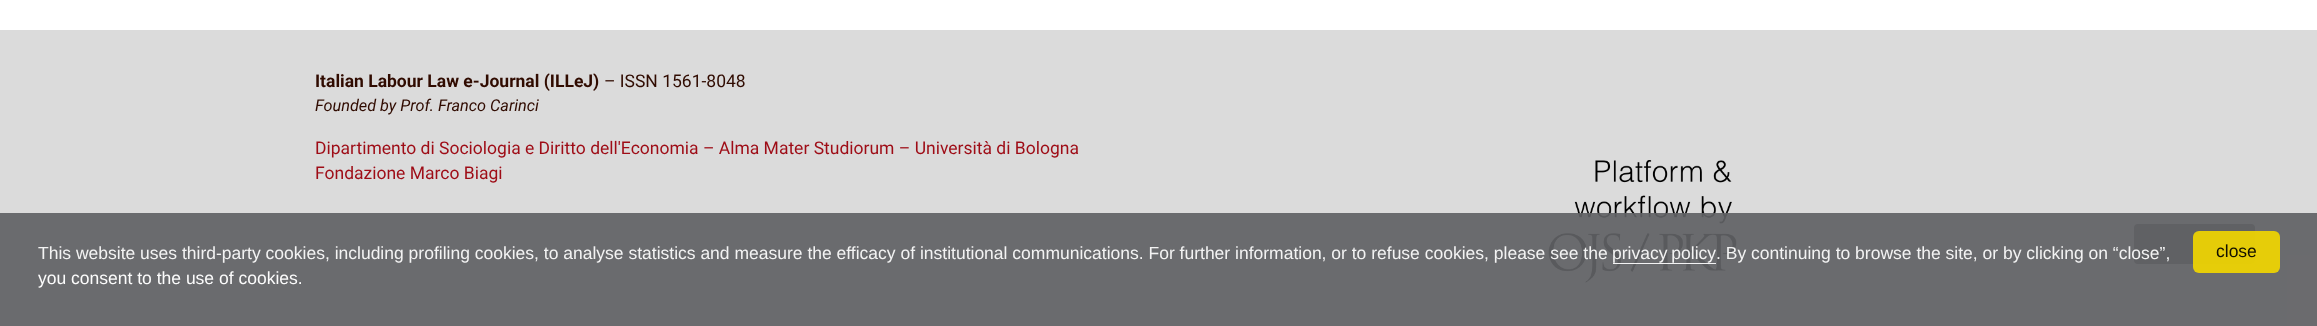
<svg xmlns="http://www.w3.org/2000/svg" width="2317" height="326">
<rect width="100%" height="100%" fill="#fff"/>
<rect y="30" width="2317" height="296" fill="#dbdbdb"/>
<text x="315" y="87" style="font-family:Roboto;font-size:17.5px;font-weight:bold;fill:#300b00">Italian Labour Law e-Journal (ILLeJ)</text>
<text x="604" y="87" style="font-family:Roboto;font-size:17.5px;fill:#300b00">– ISSN 1561-8048</text>
<text x="315" y="111" style="font-family:Roboto;font-size:16.25px;font-style:italic;fill:#300b00">Founded by Prof. Franco Carinci</text>
<text x="315" y="154" style="font-family:Roboto;font-size:17.5px;fill:#9e0c16">Dipartimento di Sociologia e Diritto dell'Economia – Alma Mater Studiorum – Università di Bologna</text>
<text x="315" y="179" style="font-family:Roboto;font-size:17.5px;fill:#9e0c16">Fondazione Marco Biagi</text>
<image x="1548" y="160" width="189" height="123" href="media/1.png"/>
<rect x="2134" y="224" width="121" height="40" rx="4" fill="#595959"/>
<rect y="213" width="2317" height="113" fill="#616265eb"/>
<text x="38" y="259" style="font-family:Liberation Sans;font-size:17.5px;fill:#f3f3f3">This website uses third-party cookies, including profiling cookies, to analyse statistics and measure the efficacy of institutional communications. For further information, or to refuse cookies, please see the</text>
<text x="1612" y="259" word-spacing="-1" style="font-family:Liberation Sans;font-size:17.5px;fill:#f3f3f3">privacy policy</text>
<rect x="1613" y="263" width="103" height="1" fill="#ffffffeb"/>
<text x="1716" y="259" style="font-family:Liberation Sans;font-size:17.5px;fill:#f3f3f3">. By continuing to browse the site, or by clicking on “close”,</text>
<text x="38" y="284" style="font-family:Liberation Sans;font-size:17.5px;fill:#fcfcfc">you consent to the use of cookies.</text>
<rect x="2193" y="231" width="87" height="42" rx="6" fill="#f1d600eb"/>
<text x="2216" y="257" style="font-family:Liberation Sans;font-size:17.5px;fill:#121001">close</text>
</svg>
